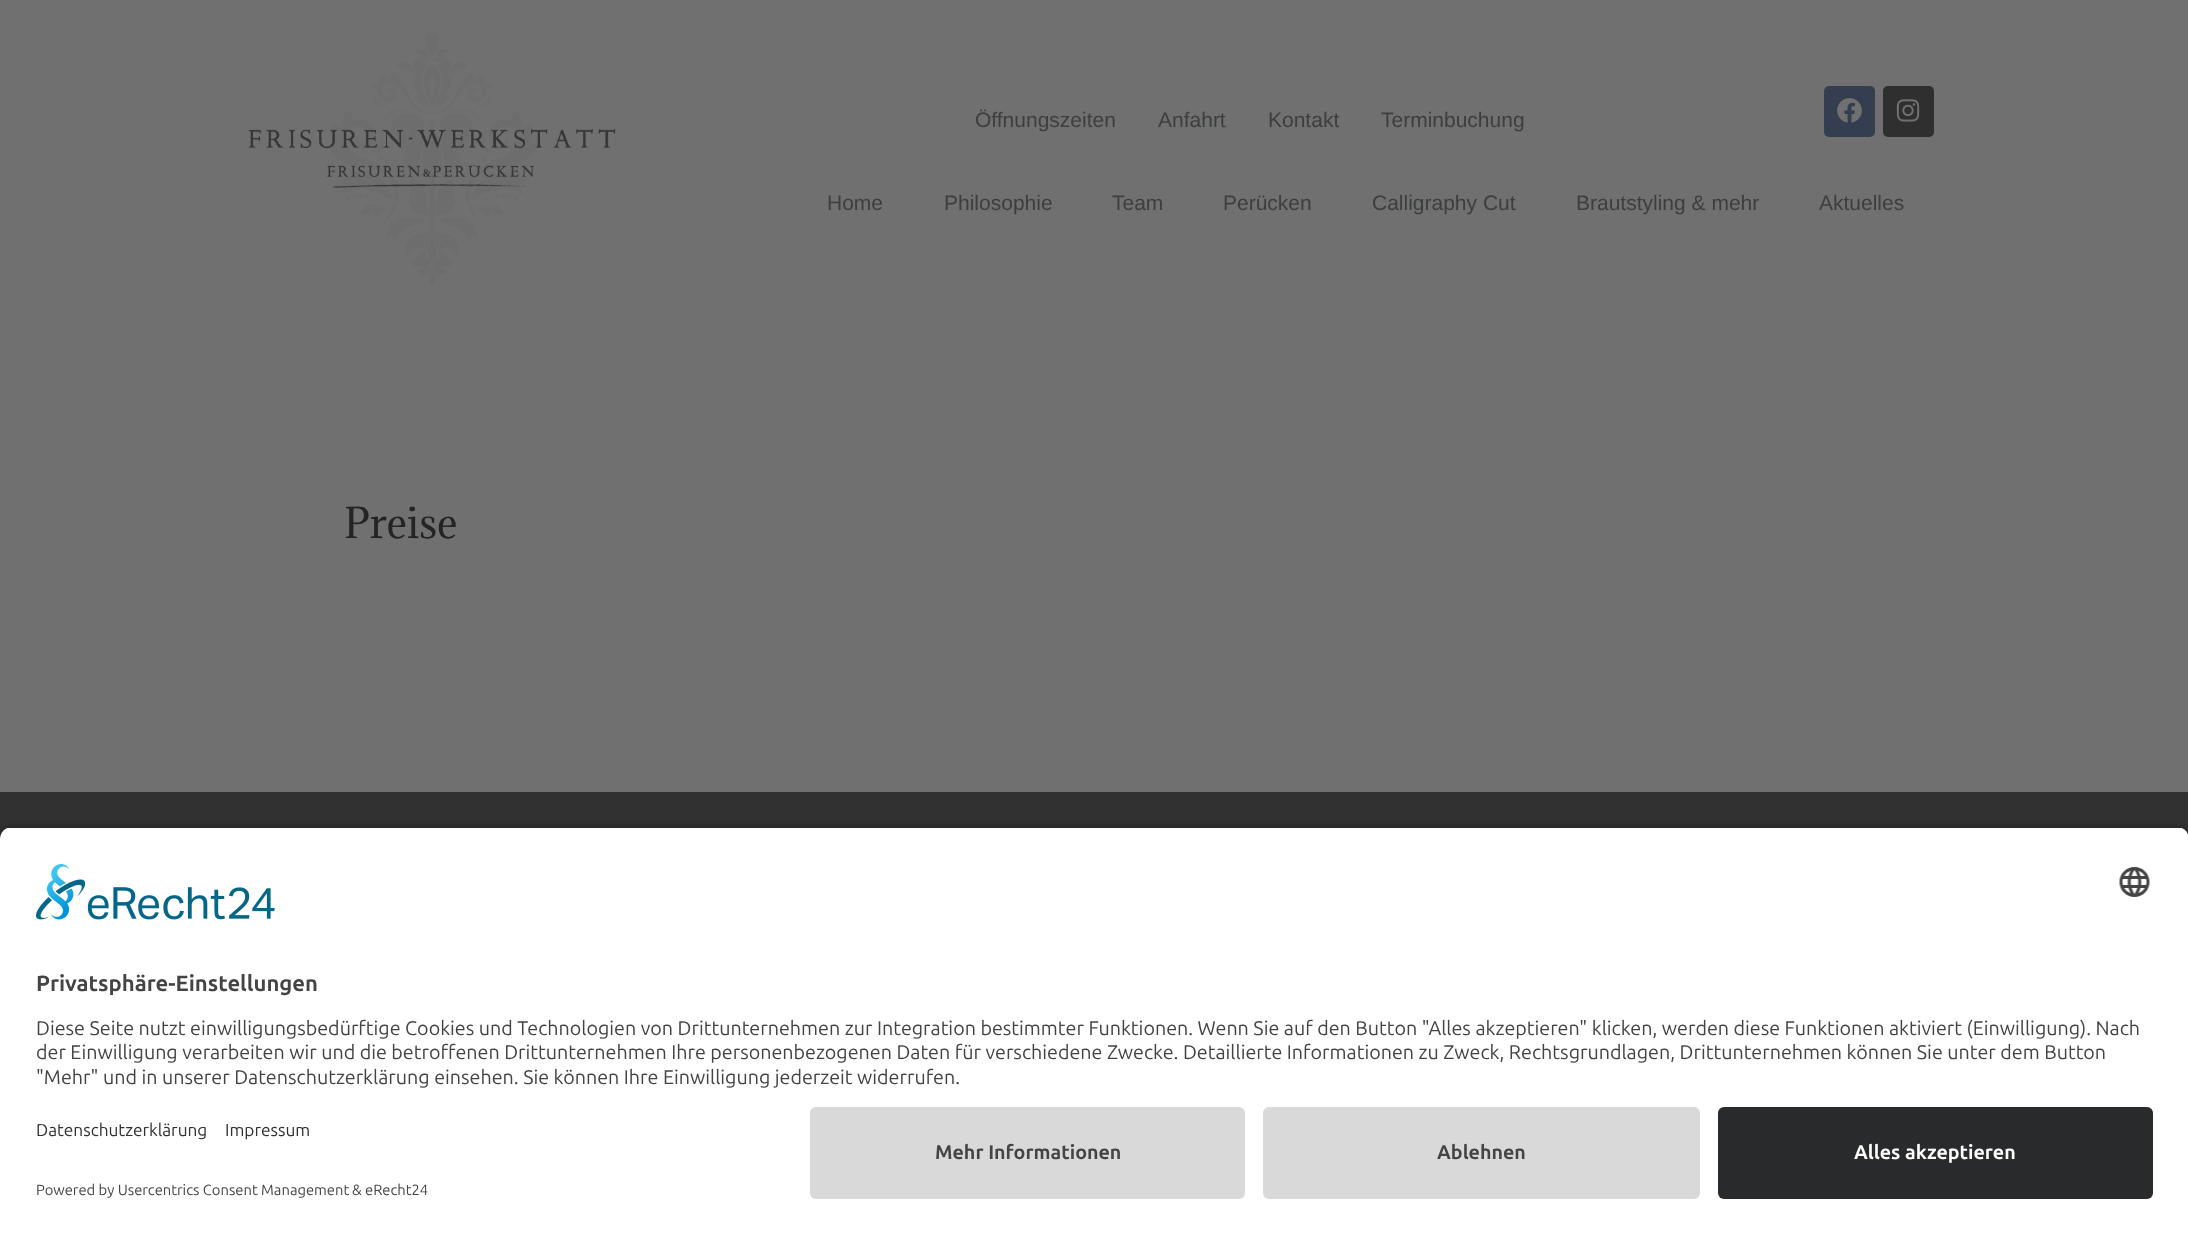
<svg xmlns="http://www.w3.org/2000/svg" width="2188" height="1234">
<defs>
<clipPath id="clip1"><path d="M12 827h2165c6.5 0 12 5.5 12 12v256h-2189v-256c0-6.5 5.5-12 12-12z"/></clipPath>
</defs>
<rect width="100%" height="100%" fill="#707070"/>
<image x="248" y="32" width="368" height="253" href="media/1.png"/>
<text x="975" y="127" style="font-family:Liberation Sans;font-size:21px;fill:#3d3e40">Öffnungszeiten</text>
<text x="1158" y="127" style="font-family:Liberation Sans;font-size:21px;fill:#3d3e40">Anfahrt</text>
<text x="1268" y="127" style="font-family:Liberation Sans;font-size:21px;fill:#3d3e40">Kontakt</text>
<text x="1381" y="127" style="font-family:Liberation Sans;font-size:21px;fill:#3d3e40">Terminbuchung</text>
<rect x="1824" y="86" width="51" height="51" rx="5" fill="#353e51"/>
<image x="1837" y="98" width="25" height="25" href="media/2.png"/>
<rect x="1883" y="86" width="51" height="51" rx="5" fill="#2f2f2f"/>
<image x="1896" y="99" width="24" height="23" href="media/3.png"/>
<text x="827" y="210" style="font-family:Liberation Sans;font-size:21px;fill:#3d3e40">Home</text>
<text x="944" y="210" style="font-family:Liberation Sans;font-size:21px;fill:#3d3e40">Philosophie</text>
<text x="1112" y="210" style="font-family:Liberation Sans;font-size:21px;fill:#3d3e40">Team</text>
<text x="1223" y="210" style="font-family:Liberation Sans;font-size:21px;fill:#3d3e40">Perücken</text>
<text x="1372" y="210" style="font-family:Liberation Sans;font-size:21px;fill:#3d3e40">Calligraphy Cut</text>
<text x="1576" y="210" style="font-family:Liberation Sans;font-size:21px;fill:#3d3e40">Brautstyling &amp; mehr</text>
<text x="1819" y="210" style="font-family:Liberation Sans;font-size:21px;fill:#3d3e40">Aktuelles</text>
<text x="344" y="538" style="font-family:Adamina;font-size:39px;fill:#242424">Preise</text>
<rect y="792" width="2188" height="47" fill="#313131"/>
<rect y="831" width="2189" height="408" rx="12" fill="#000000cc" filter="blur(5px)"/>
<g clip-path="url(#clip1)">
<rect y="828" width="2188" height="267" fill="#fff"/>
</g>
<image x="36" y="864" width="239" height="56" href="media/4.png"/>
<image x="2119" y="867" width="31" height="30" href="media/5.png"/>
<text x="36" y="991" style="font-family:Ubuntu;font-size:22.1px;font-weight:bold;fill:#444">Privatsphäre-Einstellungen</text>
<text x="36" y="1035" style="font-family:Ubuntu;font-size:19.69px;fill:#444">Diese Seite nutzt einwilligungsbedürftige Cookies und Technologien von Drittunternehmen zur Integration bestimmter Funktionen. Wenn Sie auf den Button "Alles akzeptieren" klicken, werden diese Funktionen aktiviert (Einwilligung). Nach</text>
<text x="36" y="1059" style="font-family:Ubuntu;font-size:19.69px;fill:#444">der Einwilligung verarbeiten wir und die betroffenen Drittunternehmen Ihre personenbezogenen Daten für verschiedene Zwecke. Detaillierte Informationen zu Zweck, Rechtsgrundlagen, Drittunternehmen können Sie unter dem Button</text>
<text x="36" y="1084" style="font-family:Ubuntu;font-size:19.69px;fill:#444">"Mehr" und in unserer Datenschutzerklärung einsehen. Sie können Ihre Einwilligung jederzeit widerrufen.</text>
<rect y="1095" width="2188" height="139" fill="#fff"/>
<text x="36" y="1136" style="font-family:Ubuntu;font-size:17.25px;fill:#303030">Datenschutzerklärung</text>
<text x="225" y="1136" style="font-family:Ubuntu;font-size:17.25px;fill:#303030">Impressum</text>
<text x="36" y="1195" style="font-family:Ubuntu;font-size:14.75px;fill:#444">Powered by Usercentrics Consent Management</text>
<text x="352" y="1195" style="font-family:Ubuntu;font-size:14.75px;fill:#444">&amp; eRecht24</text>
<rect x="810" y="1107" width="435" height="92" rx="6" fill="#d9d9d9"/>
<text x="935" y="1159" style="font-family:Ubuntu;font-size:19.69px;font-weight:bold;fill:#444">Mehr Informationen</text>
<rect x="1263" y="1107" width="437" height="92" rx="6" fill="#d9d9d9"/>
<text x="1437" y="1159" style="font-family:Ubuntu;font-size:19.69px;font-weight:bold;fill:#444">Ablehnen</text>
<rect x="1718" y="1107" width="435" height="92" rx="6" fill="#292a2b"/>
<text x="1854" y="1159" style="font-family:Ubuntu;font-size:19.69px;font-weight:bold;fill:#fff">Alles akzeptieren</text>
</svg>
